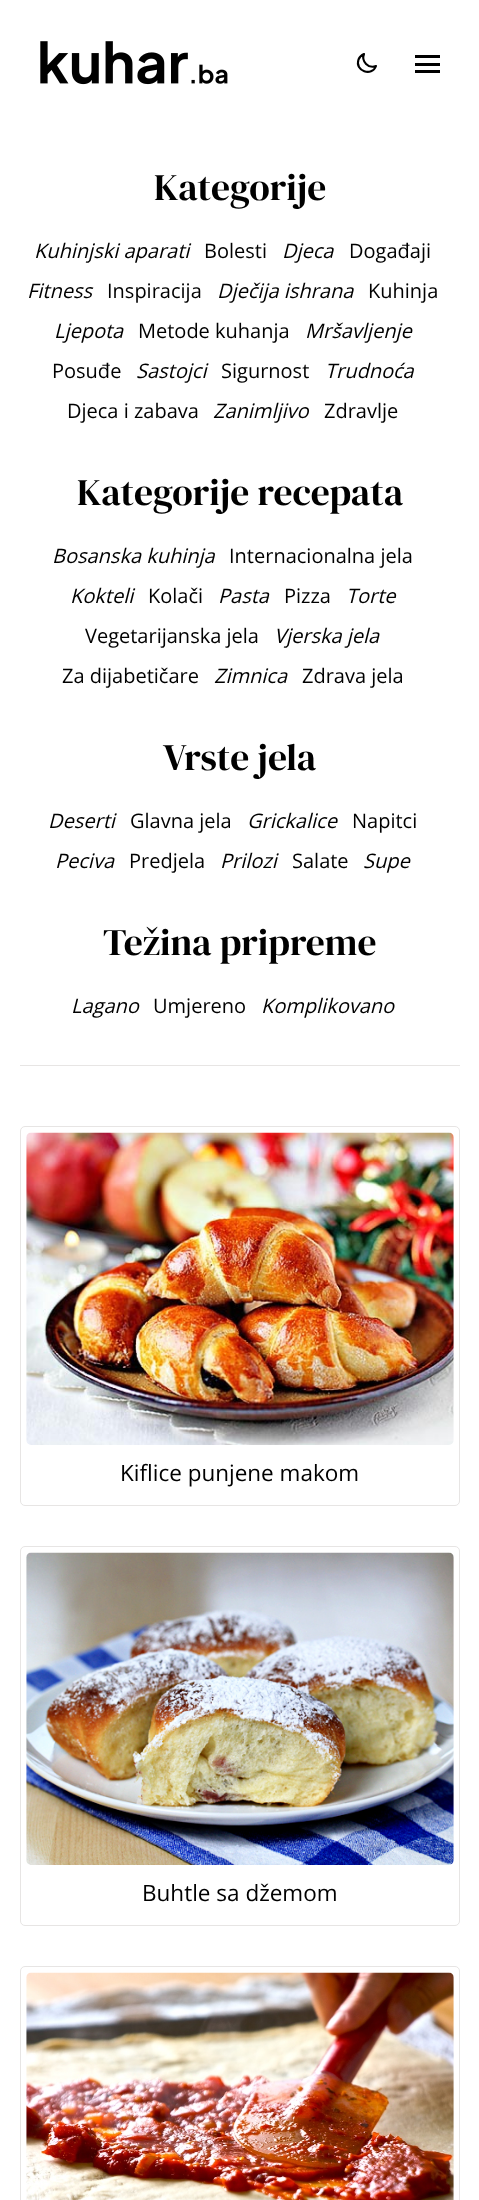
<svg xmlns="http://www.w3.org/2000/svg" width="479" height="2200">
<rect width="100%" height="100%" fill="#fff"/>
<image x="40" y="41" width="188" height="44" href="media/1.png"/>
<path d="M376 66c-7.5 3-15-4.5-12-12c-2.5 1-4.5 3-5.5 5.5c-4 11.5 13.5 17.5 17.5 6.5z" fill="none" stroke="#000" stroke-width="2.1" stroke-linecap="round" stroke-linejoin="round"/>
<rect x="415" y="55" width="25" height="3" fill="#000"/>
<rect x="415" y="63" width="25" height="3" fill="#000"/>
<rect x="415" y="70" width="25" height="3" fill="#000"/>
<rect x="20" y="1065" width="440" height="1" fill="#e7e5e4"/>
<text x="154" y="200" style="font-family:DM Serif Display;font-size:37.5px;fill:#000">Kategorije</text>
<text x="34" y="258" style="font-family:Open Sans;font-size:20px;font-style:italic;fill:#000">Kuhinjski aparati</text>
<text x="204" y="258" style="font-family:Open Sans;font-size:20px;fill:#000">Bolesti</text>
<text x="282" y="258" style="font-family:Open Sans;font-size:20px;font-style:italic;fill:#000">Djeca</text>
<text x="349" y="258" style="font-family:Open Sans;font-size:20px;fill:#000">Događaji</text>
<text x="27" y="298" style="font-family:Open Sans;font-size:20px;font-style:italic;fill:#000">Fitness</text>
<text x="107" y="298" style="font-family:Open Sans;font-size:20px;fill:#000">Inspiracija</text>
<text x="217" y="298" style="font-family:Open Sans;font-size:20px;font-style:italic;fill:#000">Dječija ishrana</text>
<text x="368" y="298" style="font-family:Open Sans;font-size:20px;fill:#000">Kuhinja</text>
<text x="54" y="338" style="font-family:Open Sans;font-size:20px;font-style:italic;fill:#000">Ljepota</text>
<text x="138" y="338" style="font-family:Open Sans;font-size:20px;fill:#000">Metode kuhanja</text>
<text x="305" y="338" style="font-family:Open Sans;font-size:20px;font-style:italic;fill:#000">Mršavljenje</text>
<text x="52" y="378" style="font-family:Open Sans;font-size:20px;fill:#000">Posuđe</text>
<text x="136" y="378" style="font-family:Open Sans;font-size:20px;font-style:italic;fill:#000">Sastojci</text>
<text x="221" y="378" style="font-family:Open Sans;font-size:20px;fill:#000">Sigurnost</text>
<text x="325" y="378" style="font-family:Open Sans;font-size:20px;font-style:italic;fill:#000">Trudnoća</text>
<text x="67" y="418" style="font-family:Open Sans;font-size:20px;fill:#000">Djeca i zabava</text>
<text x="213" y="418" style="font-family:Open Sans;font-size:20px;font-style:italic;fill:#000">Zanimljivo</text>
<text x="324" y="418" style="font-family:Open Sans;font-size:20px;fill:#000">Zdravlje</text>
<text x="77" y="505" style="font-family:DM Serif Display;font-size:37.5px;fill:#000">Kategorije recepata</text>
<text x="52" y="563" style="font-family:Open Sans;font-size:20px;font-style:italic;fill:#000">Bosanska kuhinja</text>
<text x="229" y="563" style="font-family:Open Sans;font-size:20px;fill:#000">Internacionalna jela</text>
<text x="70" y="603" style="font-family:Open Sans;font-size:20px;font-style:italic;fill:#000">Kokteli</text>
<text x="148" y="603" style="font-family:Open Sans;font-size:20px;fill:#000">Kolači</text>
<text x="218" y="603" style="font-family:Open Sans;font-size:20px;font-style:italic;fill:#000">Pasta</text>
<text x="284" y="603" style="font-family:Open Sans;font-size:20px;fill:#000">Pizza</text>
<text x="346" y="603" style="font-family:Open Sans;font-size:20px;font-style:italic;fill:#000">Torte</text>
<text x="85" y="643" style="font-family:Open Sans;font-size:20px;fill:#000">Vegetarijanska jela</text>
<text x="274" y="643" style="font-family:Open Sans;font-size:20px;font-style:italic;fill:#000">Vjerska jela</text>
<text x="62" y="683" style="font-family:Open Sans;font-size:20px;fill:#000">Za dijabetičare</text>
<text x="214" y="683" style="font-family:Open Sans;font-size:20px;font-style:italic;fill:#000">Zimnica</text>
<text x="302" y="683" style="font-family:Open Sans;font-size:20px;fill:#000">Zdrava jela</text>
<text x="163" y="770" style="font-family:DM Serif Display;font-size:37.5px;fill:#000">Vrste jela</text>
<text x="48" y="828" style="font-family:Open Sans;font-size:20px;font-style:italic;fill:#000">Deserti</text>
<text x="130" y="828" style="font-family:Open Sans;font-size:20px;fill:#000">Glavna jela</text>
<text x="247" y="828" style="font-family:Open Sans;font-size:20px;font-style:italic;fill:#000">Grickalice</text>
<text x="352" y="828" style="font-family:Open Sans;font-size:20px;fill:#000">Napitci</text>
<text x="55" y="868" style="font-family:Open Sans;font-size:20px;font-style:italic;fill:#000">Peciva</text>
<text x="129" y="868" style="font-family:Open Sans;font-size:20px;fill:#000">Predjela</text>
<text x="220" y="868" style="font-family:Open Sans;font-size:20px;font-style:italic;fill:#000">Prilozi</text>
<text x="292" y="868" style="font-family:Open Sans;font-size:20px;fill:#000">Salate</text>
<text x="363" y="868" style="font-family:Open Sans;font-size:20px;font-style:italic;fill:#000">Supe</text>
<text x="103" y="955" style="font-family:DM Serif Display;font-size:37.5px;fill:#000">Težina pripreme</text>
<text x="71" y="1013" style="font-family:Open Sans;font-size:20px;font-style:italic;fill:#000">Lagano</text>
<text x="153" y="1013" style="font-family:Open Sans;font-size:20px;fill:#000">Umjereno</text>
<text x="261" y="1013" style="font-family:Open Sans;font-size:20px;font-style:italic;fill:#000">Komplikovano</text>
<rect x="20.5" y="1126.5" width="439" height="379" rx="4.5" fill="none" stroke="#e7e5e4"/>
<image x="26" y="1132" width="428" height="313" href="media/2.png"/>
<text x="120" y="1481" style="font-family:Open Sans;font-size:22.5px;fill:#000">Kiflice punjene makom</text>
<rect x="20.5" y="1546.5" width="439" height="379" rx="4.5" fill="none" stroke="#e7e5e4"/>
<image x="26" y="1552" width="428" height="313" href="media/3.png"/>
<text x="142" y="1901" style="font-family:Open Sans;font-size:22.5px;fill:#000">Buhtle sa džemom</text>
<rect x="20.5" y="1966.5" width="439" height="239" rx="4.5" fill="none" stroke="#e7e5e4"/>
<image x="26" y="1972" width="428" height="228" href="media/4.png"/>
</svg>
